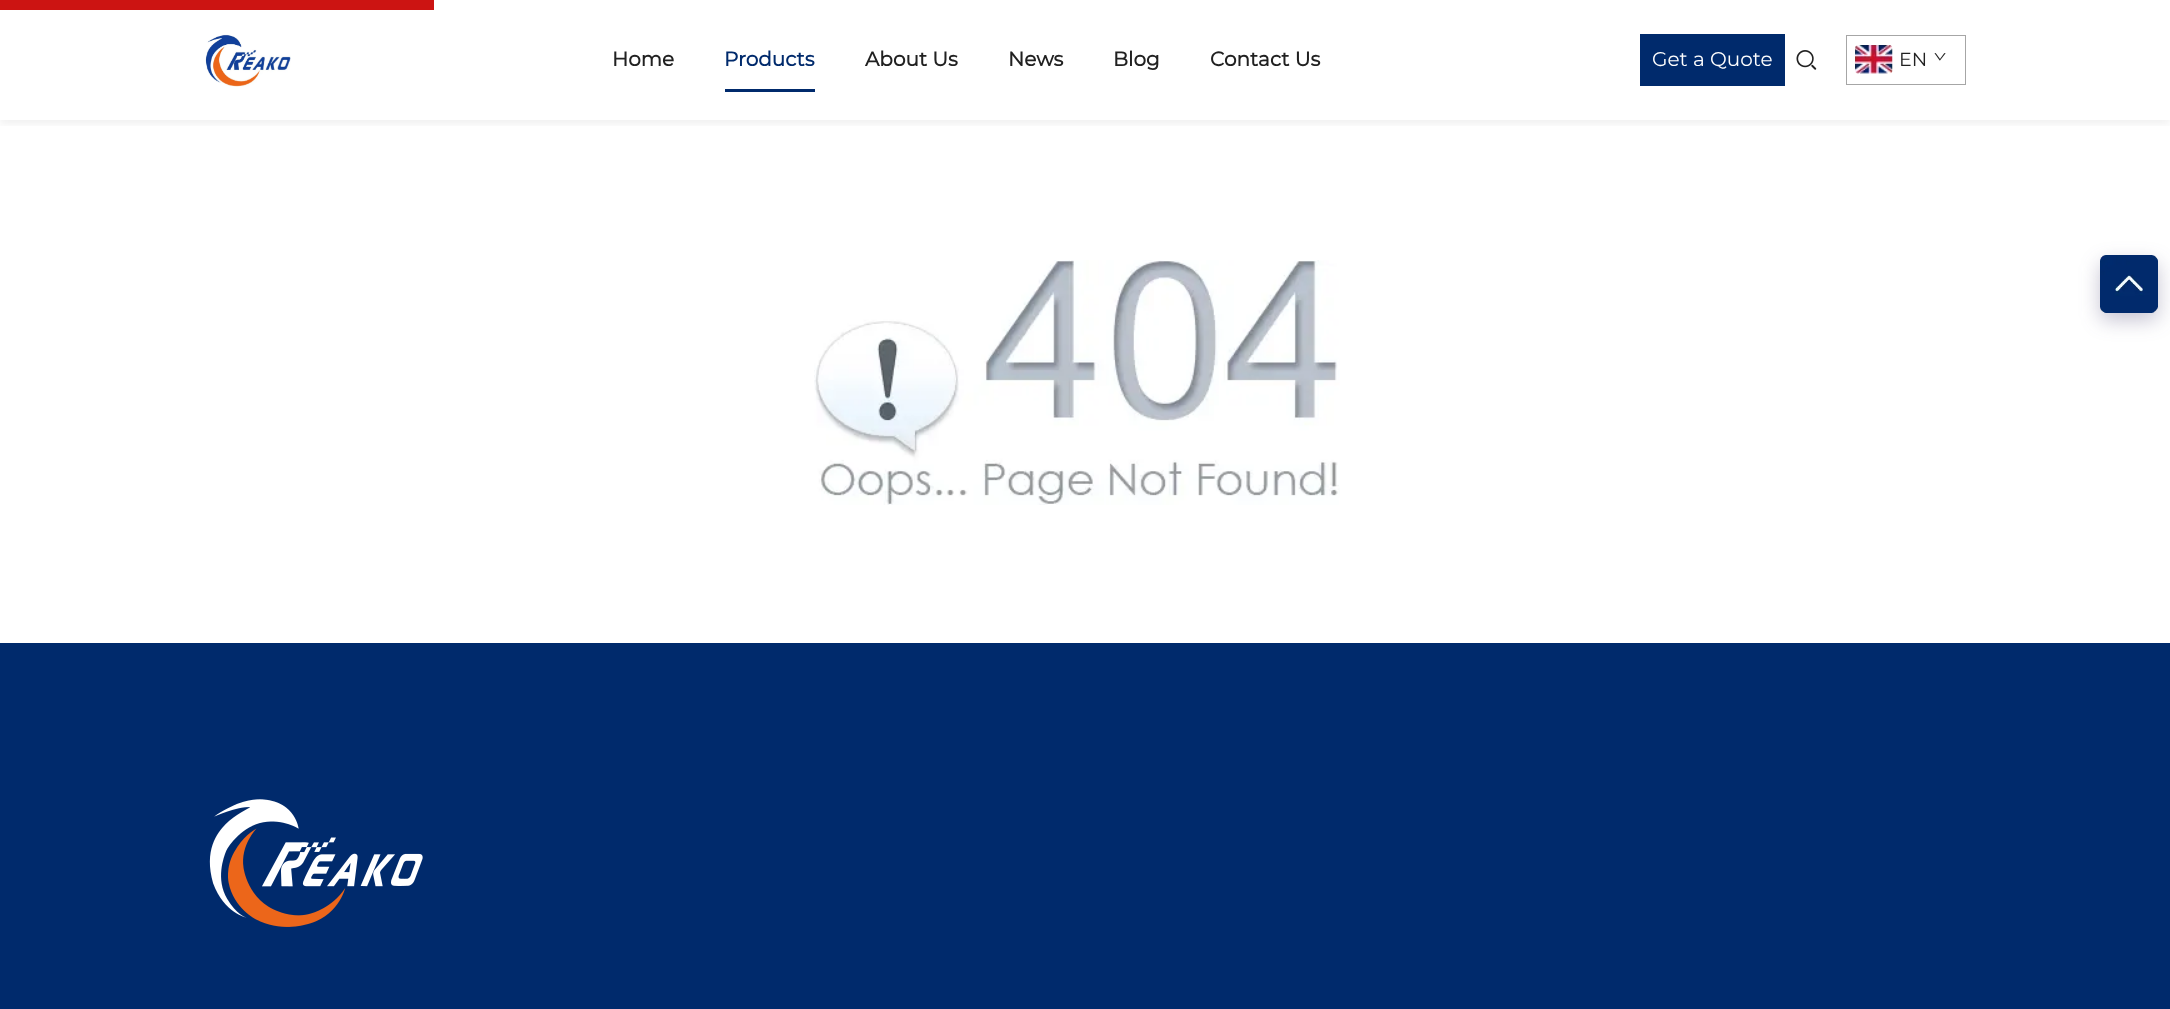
<svg xmlns="http://www.w3.org/2000/svg" width="2170" height="1009">
<defs>
<clipPath id="clip1"><rect x="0" y="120" width="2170" height="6"/></clipPath>
</defs>
<rect width="100%" height="100%" fill="#fff"/>
<g clip-path="url(#clip1)">
<rect y="4" width="2170" height="120" fill="#0000000f" filter="blur(4.5px)"/>
</g>
<rect width="434" height="10" fill="#cc1412"/>
<image x="205" y="34" width="86" height="53" href="media/1.png"/>
<text x="612" y="66" style="font-family:Montserrat;font-size:20px;font-weight:bold;fill:#212121">Home</text>
<text x="724" y="66" style="font-family:Montserrat;font-size:20px;font-weight:bold;fill:#002a6c">Products</text>
<rect x="725" y="89" width="90" height="3" fill="#002a6c"/>
<text x="865" y="66" style="font-family:Montserrat;font-size:20px;font-weight:bold;fill:#212121">About Us</text>
<text x="1008" y="66" style="font-family:Montserrat;font-size:20px;font-weight:bold;fill:#212121">News</text>
<text x="1113" y="66" style="font-family:Montserrat;font-size:20px;font-weight:bold;fill:#212121">Blog</text>
<text x="1210" y="66" style="font-family:Montserrat;font-size:20px;font-weight:bold;fill:#212121">Contact Us</text>
<rect x="1640" y="34" width="145" height="52" fill="#002a6c"/>
<text x="1652" y="66" style="font-family:Montserrat;font-size:20px;fill:#fff">Get a Quote</text>
<image x="1796" y="50" width="21" height="20" href="media/2.png"/>
<rect x="1846.5" y="35.5" width="119" height="49" fill="none" stroke="#a6a6a6"/>
<image x="1855" y="45" width="38" height="29" href="media/3.png"/>
<text x="1899" y="66" style="font-family:Montserrat;font-size:19px;fill:#212121">EN</text>
<image x="1934" y="53" width="12" height="8" href="media/4.png"/>
<image x="814" y="260" width="526" height="245" href="media/5.png"/>
<rect x="2100" y="263" width="58" height="57" rx="6" fill="#3e396b4d" filter="blur(10px)"/>
<image x="2100" y="255" width="58" height="58" href="media/6.png"/>
<rect y="643" width="2170" height="366" fill="#002a6c"/>
<image x="209" y="799" width="214" height="128" href="media/7.png"/>
</svg>
